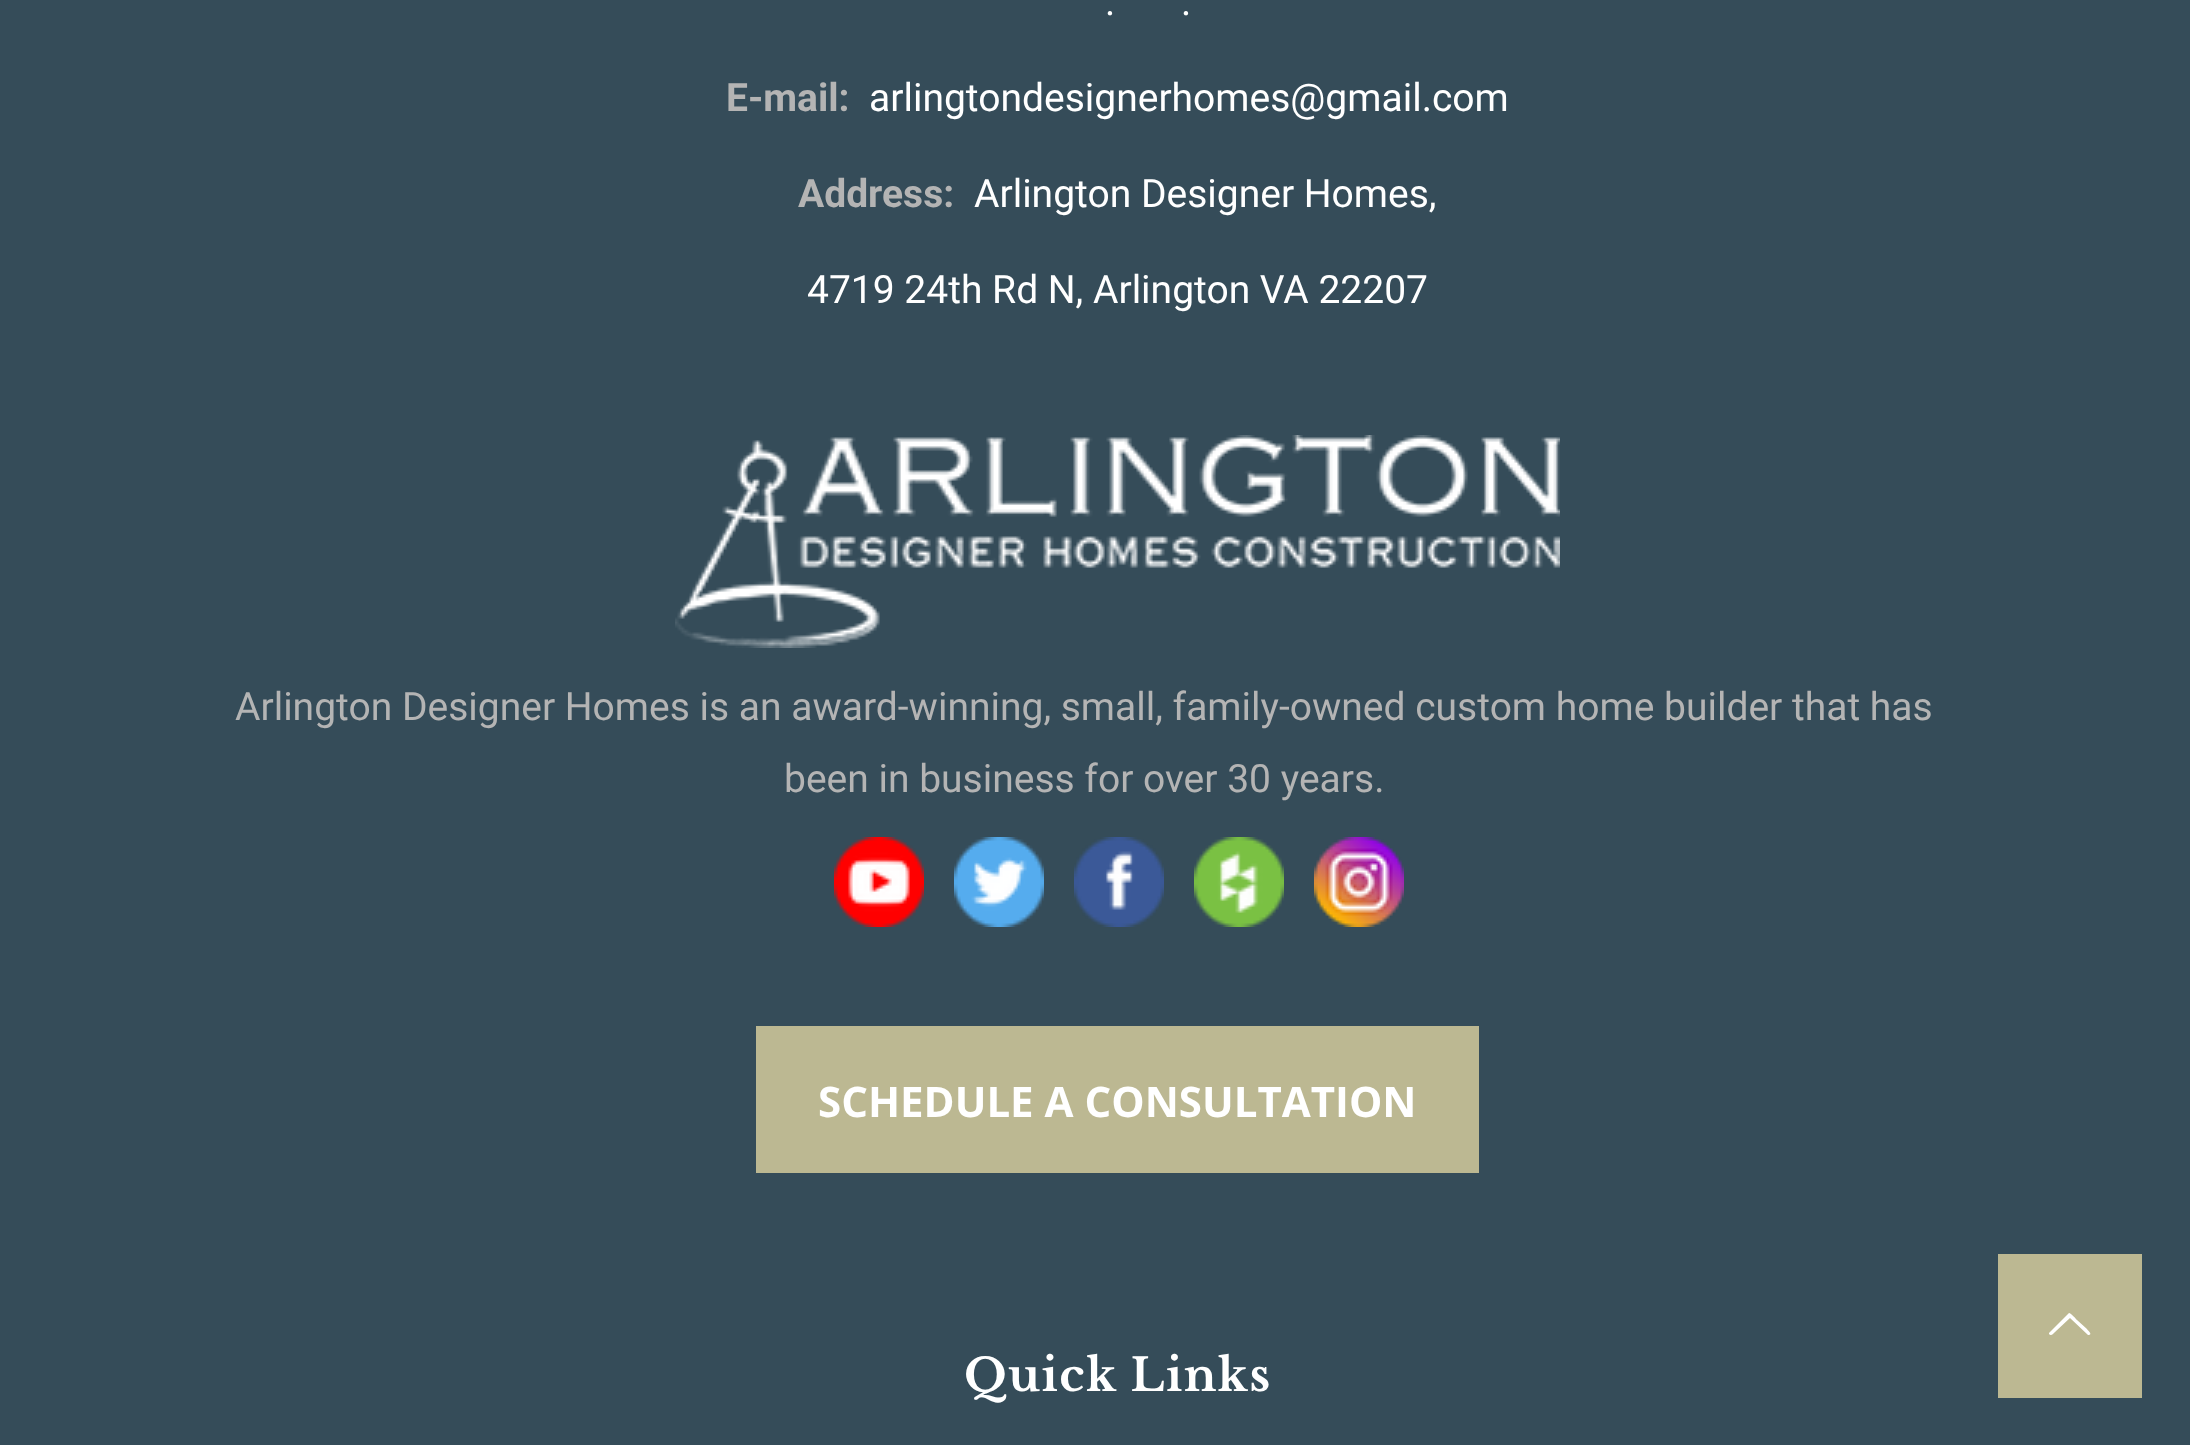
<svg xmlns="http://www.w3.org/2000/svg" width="2190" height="1445">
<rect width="100%" height="100%" fill="#354c59"/>
<text x="1105" y="15" style="font-family:Roboto;font-size:39px;fill:#fff">.</text>
<text x="1181" y="15" style="font-family:Roboto;font-size:39px;fill:#fff">.</text>
<text x="726" y="111" style="font-family:Roboto;font-size:39px;font-weight:bold;fill:#b4b4b4">E-mail:</text>
<text x="869" y="111" style="font-family:Roboto;font-size:39px;fill:#fff">arlingtondesignerhomes@gmail.com</text>
<text x="798" y="207" style="font-family:Roboto;font-size:39px;font-weight:bold;fill:#b4b4b4">Address:</text>
<text x="974" y="207" style="font-family:Roboto;font-size:39px;fill:#fff">Arlington Designer Homes,</text>
<text x="807" y="303" style="font-family:Roboto;font-size:39px;fill:#fff">4719 24th Rd N, Arlington VA 22207</text>
<image x="675" y="435" width="885" height="213" href="media/1.png"/>
<text x="235" y="720" style="font-family:Roboto;font-size:39px;fill:#b4b4b4">Arlington Designer Homes is an award-winning, small, family-owned custom home builder that has</text>
<text x="784" y="792" style="font-family:Roboto;font-size:39px;fill:#b4b4b4">been in business for over 30 years.</text>
<image x="834" y="837" width="90" height="90" href="media/2.png"/>
<image x="954" y="837" width="90" height="90" href="media/3.png"/>
<image x="1074" y="837" width="90" height="90" href="media/4.png"/>
<image x="1194" y="837" width="90" height="90" href="media/5.png"/>
<image x="1314" y="837" width="90" height="90" href="media/6.png"/>
<rect x="756" y="1026" width="723" height="147" fill="#bcb892"/>
<text x="818" y="1117" style="font-family:Open Sans;font-size:42px;font-weight:bold;fill:#fff">SCHEDULE A CONSULTATION</text>
<text x="964" y="1391" style="font-family:Libre Baskerville;font-size:45px;font-weight:bold;letter-spacing:1.5px;fill:#fff">Quick Links</text>
<rect x="1998" y="1254" width="144" height="144" fill="#bcb892"/>
<path d="M2088 1335l-18-17l-15 14c-1 1-4 5-6 2v-1l20-20c2 0 7 6 8 7l10 9c0 1 6 5 2 6z" fill="#fff"/>
</svg>
